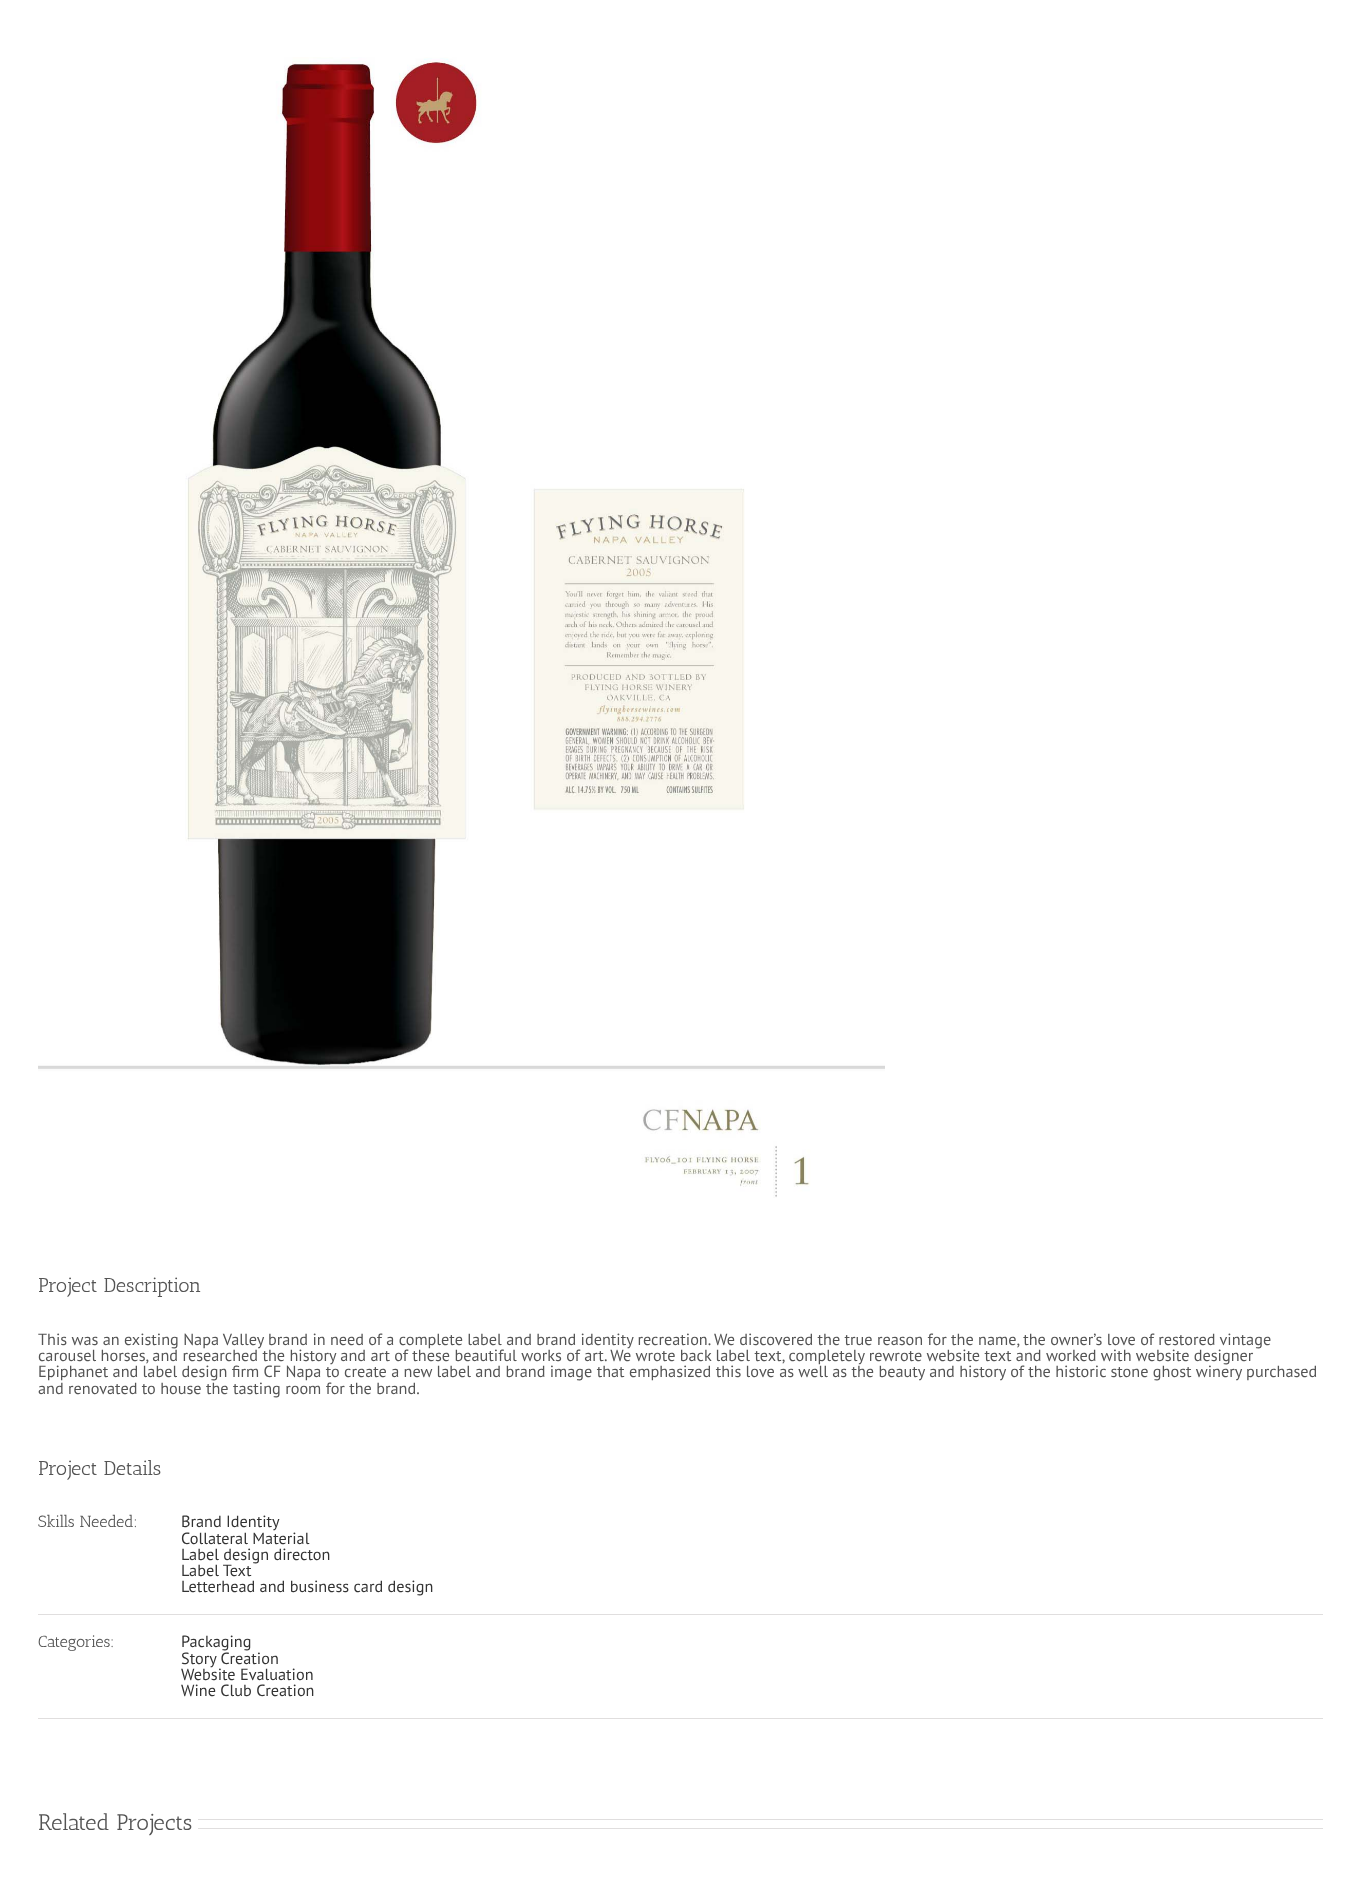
<svg xmlns="http://www.w3.org/2000/svg" width="1359" height="1878">
<rect width="100%" height="100%" fill="#fff"/>
<image x="38" y="57" width="847" height="1141" href="media/1.png"/>
<text x="38" y="1292" style="font-family:Antic Slab;font-size:20px;fill:#545454">Project Description</text>
<text x="38" y="1345" style="font-family:PT Sans;font-size:16.25px;fill:#545454">This was an existing Napa Valley brand in need of a complete label and brand identity recreation. We discovered the true reason for the name, the owner’s love of restored vintage</text>
<text x="38" y="1361" style="font-family:PT Sans;font-size:16.25px;fill:#545454">carousel horses, and researched the history and art of these beautiful works of art. We wrote back label text, completely rewrote website text and worked with website designer</text>
<text x="38" y="1377" style="font-family:PT Sans;font-size:16.25px;fill:#545454">Epiphanet and label design firm CF Napa to create a new label and brand image that emphasized this love as well as the beauty and history of the historic stone ghost winery purchased</text>
<text x="38" y="1394" style="font-family:PT Sans;font-size:16.25px;fill:#545454">and renovated to house the tasting room for the brand.</text>
<text x="38" y="1475" style="font-family:Antic Slab;font-size:20px;fill:#545454">Project Details</text>
<rect x="38" y="1614" width="1285" height="1" fill="#e0dede"/>
<text x="38" y="1527" style="font-family:Antic Slab;font-size:16.25px;fill:#545454">Skills Needed:</text>
<text x="181" y="1527" style="font-family:PT Sans;font-size:16.25px;fill:#333">Brand Identity</text>
<text x="181" y="1544" style="font-family:PT Sans;font-size:16.25px;fill:#333">Collateral Material</text>
<text x="181" y="1560" style="font-family:PT Sans;font-size:16.25px;fill:#333">Label design directon</text>
<text x="181" y="1576" style="font-family:PT Sans;font-size:16.25px;fill:#333">Label Text</text>
<text x="181" y="1592" style="font-family:PT Sans;font-size:16.25px;fill:#333">Letterhead and business card design</text>
<rect x="38" y="1718" width="1285" height="1" fill="#e0dede"/>
<text x="38" y="1647" style="font-family:Antic Slab;font-size:16.25px;fill:#545454">Categories:</text>
<text x="181" y="1647" style="font-family:PT Sans;font-size:16.25px;fill:#333">Packaging</text>
<text x="181" y="1664" style="font-family:PT Sans;font-size:16.25px;fill:#333">Story Creation</text>
<text x="181" y="1680" style="font-family:PT Sans;font-size:16.25px;fill:#333">Website Evaluation</text>
<text x="181" y="1696" style="font-family:PT Sans;font-size:16.25px;fill:#333">Wine Club Creation</text>
<text x="38" y="1830" style="font-family:Antic Slab;font-size:22.5px;fill:#545454">Related Projects</text>
<rect x="198" y="1819" width="1125" height="1" fill="#e0dede"/>
<rect x="198" y="1828" width="1125" height="1" fill="#e0dede"/>
</svg>
